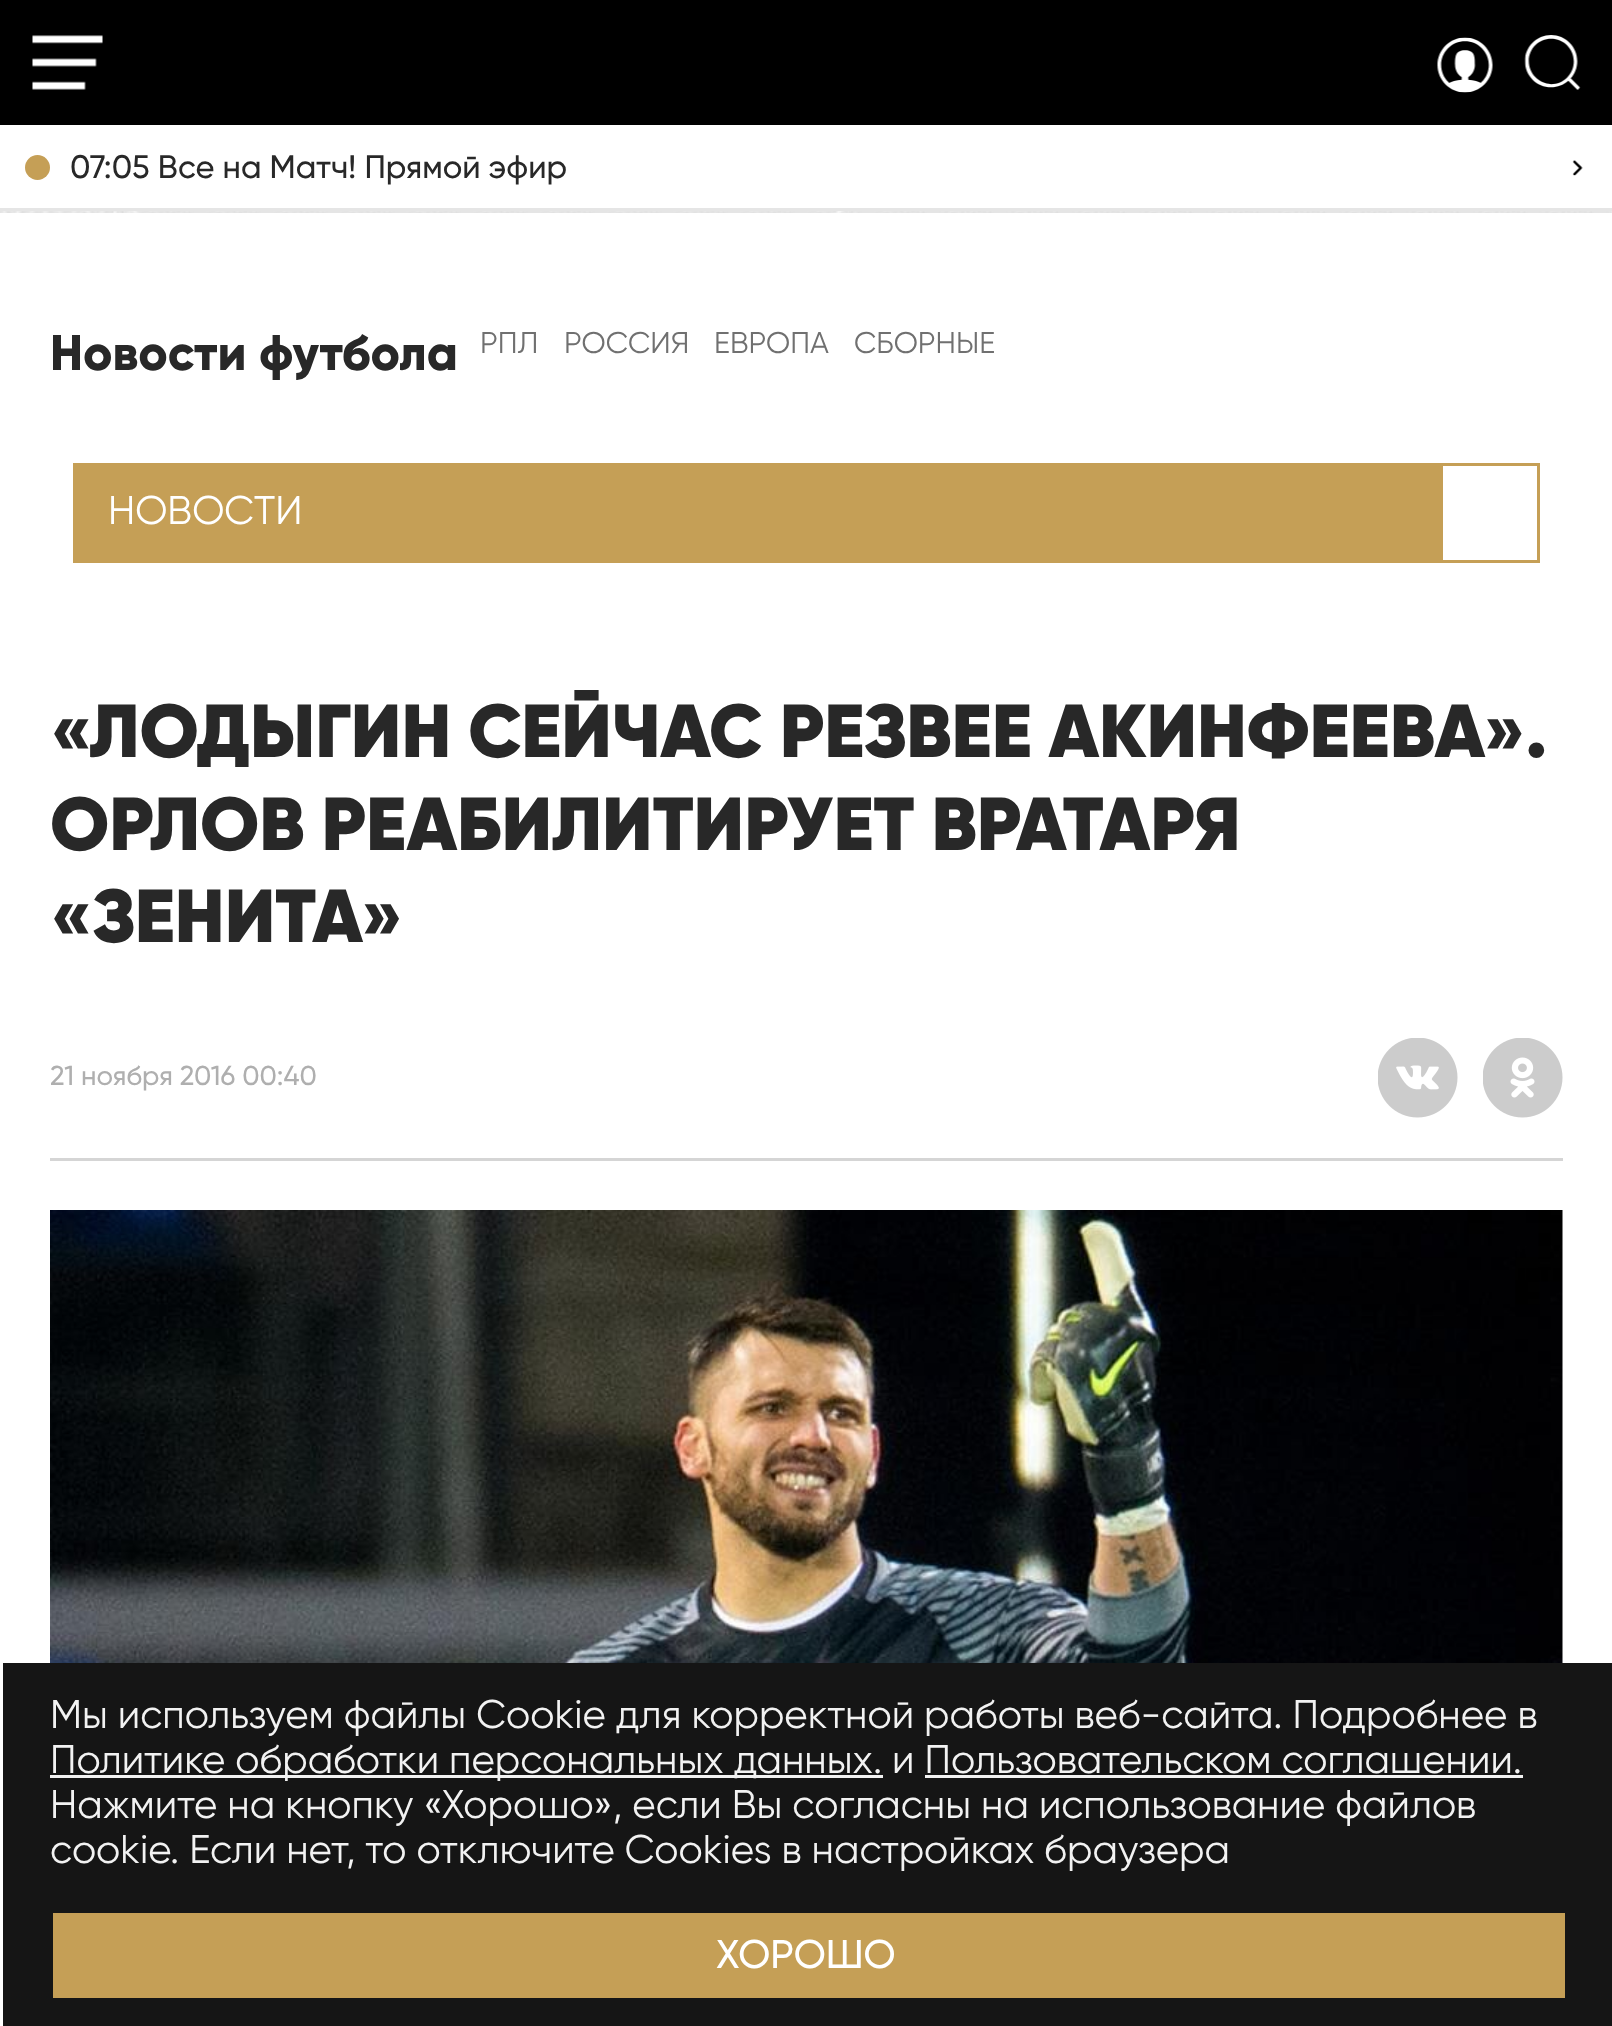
<svg xmlns="http://www.w3.org/2000/svg" width="1612" height="2026">
<rect width="100%" height="100%" fill="#fff"/>
<image x="0" y="211" width="1612" height="2" href="media/1.png"/>
<rect width="1612" height="125" fill="#000"/>
<image x="32" y="35" width="71" height="55" href="media/2.png"/>
<image x="1437" y="37" width="56" height="56" href="media/3.png"/>
<image x="1524" y="35" width="57" height="55" href="media/4.png"/>
<rect y="208" width="1612" height="3" fill="#e5e5e5"/>
<circle cx="37.5" cy="167.5" r="12.5" fill="#c59f56"/>
<text x="70" y="178" style="font-family:Gilroy;font-size:32.5px;font-weight:500;fill:#282828">07:05 Все на Матч! Прямой эфир</text>
<image x="1572" y="160" width="11" height="16" href="media/5.png"/>
<text x="50" y="370" style="font-family:Gilroy;font-size:50px;font-weight:800;fill:#282828">Новости футбола</text>
<text x="480" y="353" style="font-family:Gilroy;font-size:30px;fill:#707070">РПЛ</text>
<text x="564" y="353" style="font-family:Gilroy;font-size:30px;fill:#707070">РОССИЯ</text>
<text x="714" y="353" style="font-family:Gilroy;font-size:30px;fill:#707070">ЕВРОПА</text>
<text x="854" y="353" style="font-family:Gilroy;font-size:30px;fill:#707070">СБОРНЫЕ</text>
<rect x="73" y="463" width="1367" height="100" fill="#c59f56"/>
<text x="108" y="524" style="font-family:Gilroy;font-size:40px;fill:#fff">НОВОСТИ</text>
<rect x="1441.5" y="464.5" width="97" height="97" fill="none" stroke="#c59f56" stroke-width="3"/>
<text x="50" y="757" style="font-family:Gilroy;font-size:75px;font-weight:900;fill:#282828">«ЛОДЫГИН СЕЙЧАС РЕЗВЕЕ АКИНФЕЕВА».</text>
<text x="50" y="850" style="font-family:Gilroy;font-size:75px;font-weight:900;fill:#282828">ОРЛОВ РЕАБИЛИТИРУЕТ ВРАТАРЯ</text>
<text x="50" y="942" style="font-family:Gilroy;font-size:75px;font-weight:900;fill:#282828">«ЗЕНИТА»</text>
<rect x="50" y="1158" width="1513" height="3" fill="#d5d5d5"/>
<text x="50" y="1085" style="font-family:Gilroy;font-size:27.5px;font-weight:500;fill:#afafaf">21 ноября 2016 00:40</text>
<image x="1378" y="1038" width="80" height="80" href="media/6.png"/>
<image x="1483" y="1038" width="80" height="80" href="media/7.png"/>
<image x="50" y="1210" width="1513" height="453" href="media/8.png"/>
<rect x="3" y="1663" width="1609" height="363" fill="#151515"/>
<text x="50" y="1728" style="font-family:Gilroy;font-size:40px;fill:#f2f2f2">Мы используем файлы Сookie для корректной работы веб-сайта. Подробнее в</text>
<rect x="50" y="1775" width="833" height="3" fill="#f2f2f2"/>
<text x="50" y="1773" style="font-family:Gilroy;font-size:40px;fill:#f2f2f2">Политике обработки персональных данных. и Пользовательском соглашении.</text>
<rect x="925" y="1775" width="598" height="3" fill="#f2f2f2"/>
<text x="50" y="1818" style="font-family:Gilroy;font-size:40px;fill:#f2f2f2">Нажмите на кнопку «Хорошо», если Вы согласны на использование файлов</text>
<text x="50" y="1863" style="font-family:Gilroy;font-size:40px;fill:#f2f2f2">cookie. Если нет, то отключите Cookies в настройках браузера</text>
<rect x="53" y="1913" width="1512" height="85" fill="#c59f56"/>
<text x="716" y="1968" style="font-family:Gilroy;font-size:40px;font-weight:500;fill:#fff">ХОРОШО</text>
</svg>
